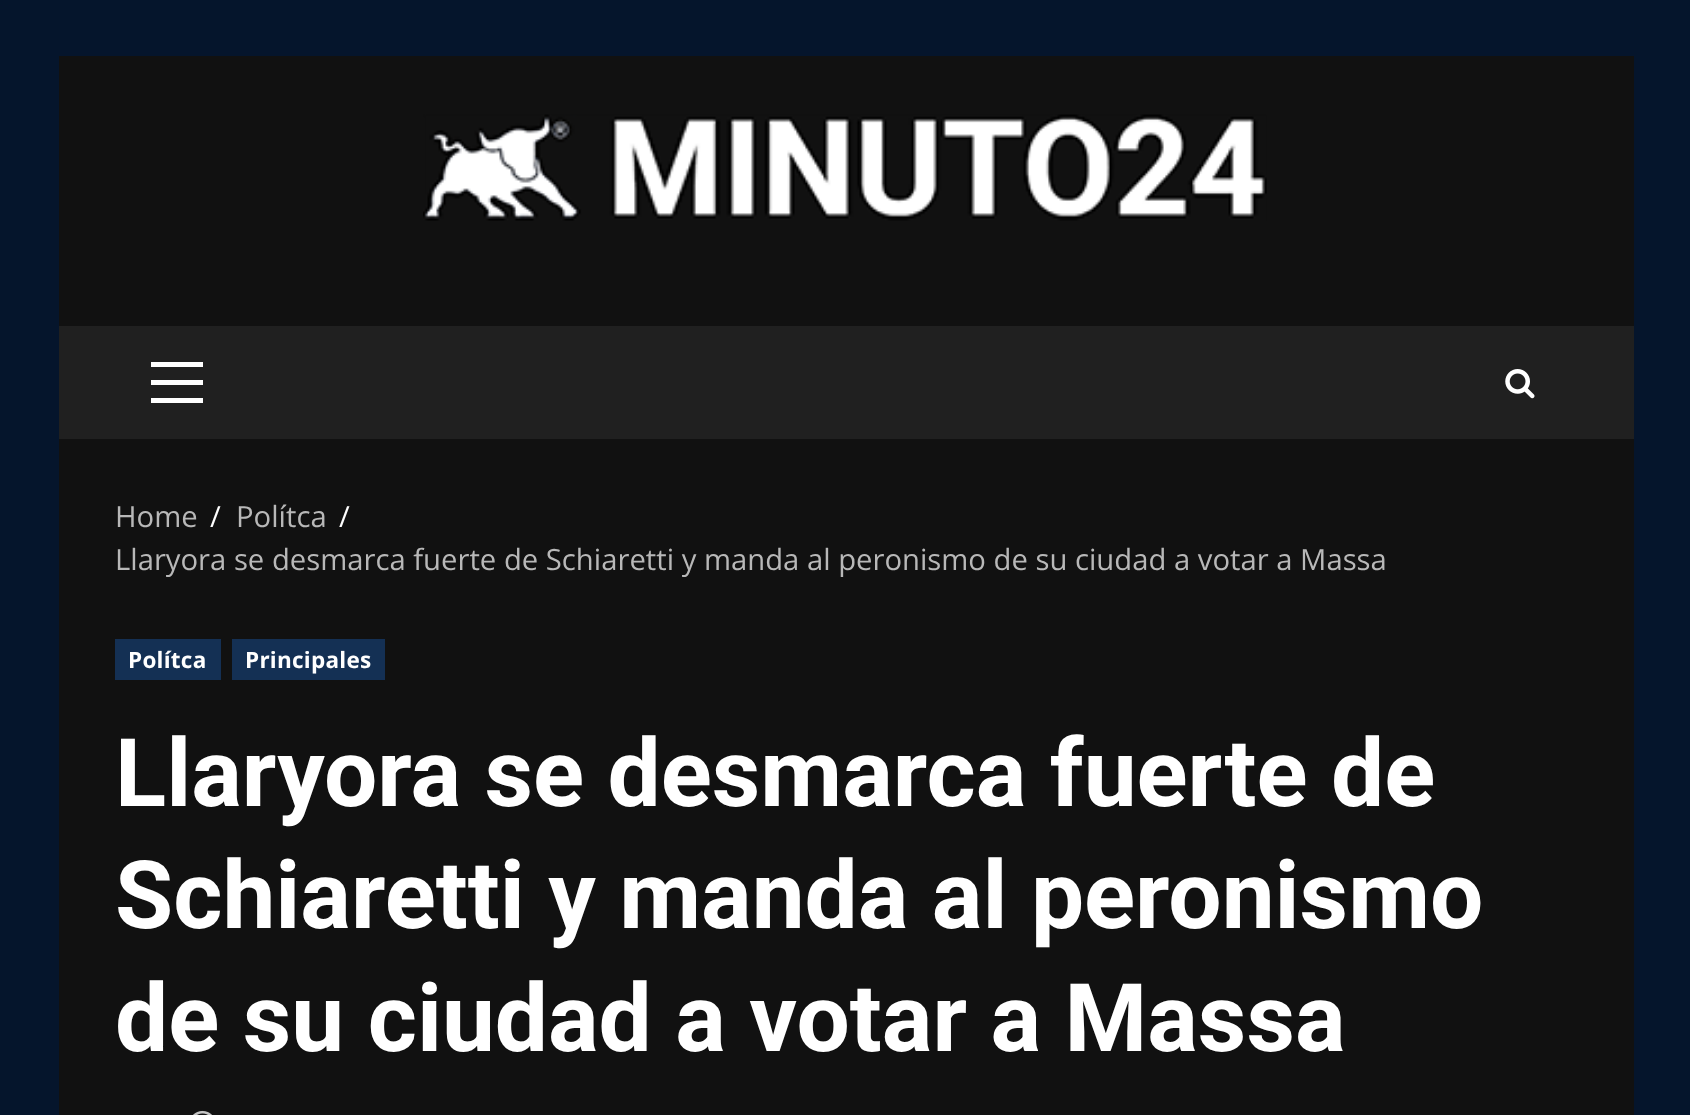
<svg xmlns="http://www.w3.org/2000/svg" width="1690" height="1115">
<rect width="100%" height="100%" fill="#05152c"/>
<rect x="59" y="56" width="1575" height="1059" fill="#111"/>
<image x="423" y="114" width="844" height="107" href="media/1.png"/>
<rect x="59" y="326" width="1575" height="113" fill="#202020"/>
<rect x="151" y="380" width="52" height="5" fill="#fff"/>
<rect x="151" y="362" width="52" height="5" fill="#fff"/>
<rect x="151" y="398" width="52" height="5" fill="#fff"/>
<image x="1505" y="369" width="30" height="30" href="media/2.png"/>
<text x="115" y="527" style="font-family:Open Sans;font-size:29.25px;fill:#b8b8b8">Home</text>
<text x="210" y="527" style="font-family:Open Sans;font-size:29.25px;fill:#fff">/</text>
<text x="236" y="527" style="font-family:Open Sans;font-size:29.25px;fill:#b8b8b8">Polítca</text>
<text x="339" y="527" style="font-family:Open Sans;font-size:29.25px;fill:#fff">/</text>
<text x="115" y="570" style="font-family:Open Sans;font-size:29.25px;fill:#b8b8b8">Llaryora se desmarca fuerte de Schiaretti y manda al peronismo de su ciudad a votar a Massa</text>
<rect x="115" y="639" width="106" height="41" fill="#143054"/>
<text x="128" y="668" style="font-family:Open Sans;font-size:22.5px;font-weight:bold;letter-spacing:0.25px;fill:#fff">Polítca</text>
<rect x="232" y="639" width="153" height="41" fill="#143054"/>
<text x="245" y="668" style="font-family:Open Sans;font-size:22.5px;font-weight:bold;letter-spacing:0.25px;fill:#fff">Principales</text>
<text x="115" y="806" style="font-family:Roboto;font-size:94.5px;font-weight:bold;fill:#fff">Llaryora se desmarca fuerte de</text>
<text x="115" y="928" style="font-family:Roboto;font-size:94.5px;font-weight:bold;fill:#fff">Schiaretti y manda al peronismo</text>
<text x="115" y="1051" style="font-family:Roboto;font-size:94.5px;font-weight:bold;fill:#fff">de su ciudad a votar a Massa</text>
<image x="193" y="1110" width="19" height="5" href="media/3.png"/>
</svg>
